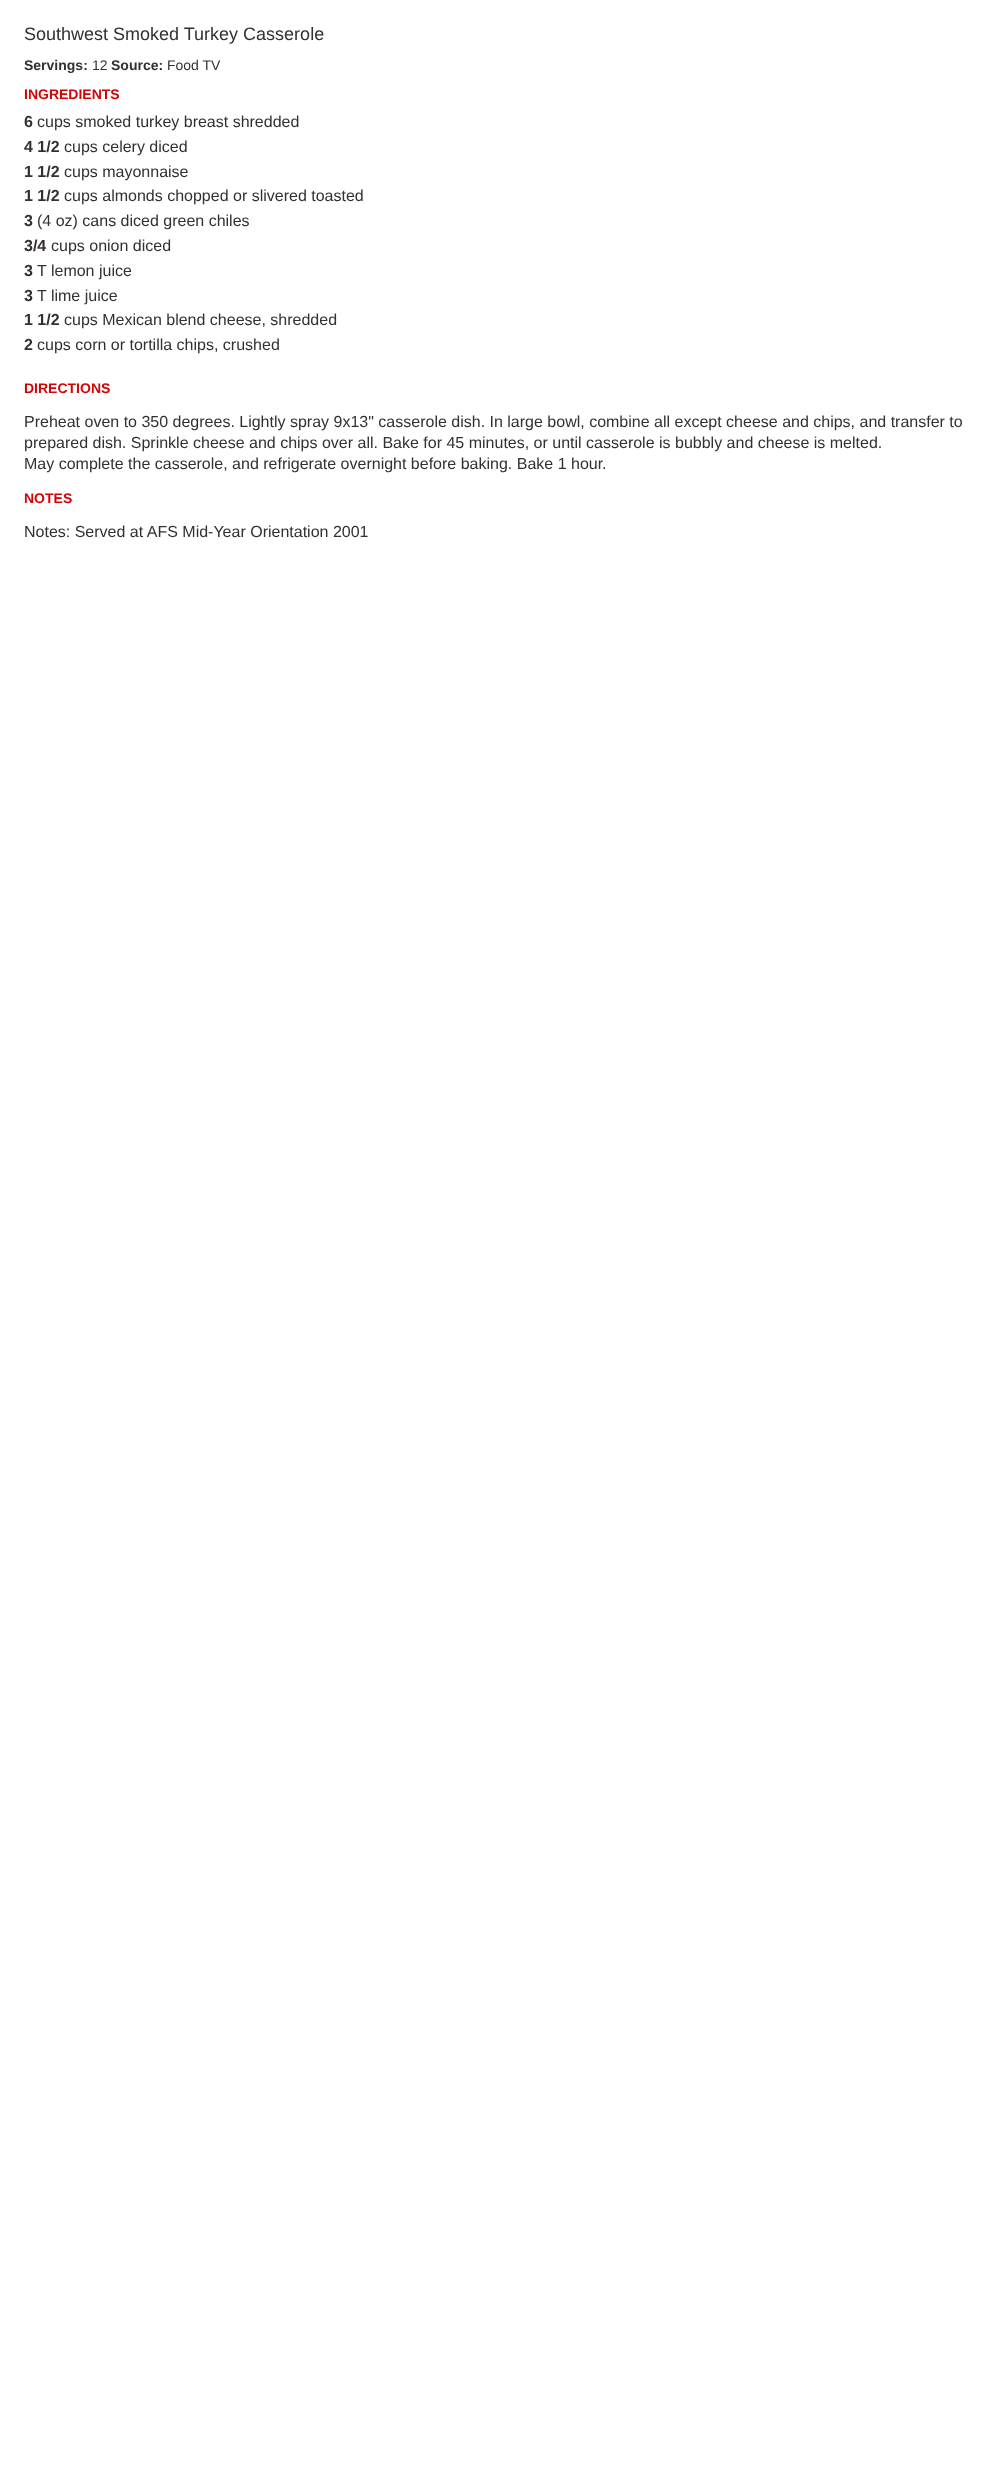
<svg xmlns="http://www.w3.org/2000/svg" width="1001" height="2478">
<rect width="100%" height="100%" fill="#fff"/>
<text x="24" y="40" style="font-family:Liberation Sans;font-size:18px;fill:#34302e">Southwest Smoked Turkey Casserole</text>
<text x="24" y="70" style="font-family:Liberation Sans;font-size:14px;font-weight:bold;fill:#34302e">Servings:</text>
<text x="92" y="70" style="font-family:Liberation Sans;font-size:14px;fill:#34302e">12</text>
<text x="111" y="70" style="font-family:Liberation Sans;font-size:14px;font-weight:bold;fill:#34302e">Source:</text>
<text x="167" y="70" style="font-family:Liberation Sans;font-size:14px;fill:#34302e">Food TV</text>
<text x="24" y="99" style="font-family:Liberation Sans;font-size:14px;font-weight:bold;fill:#d10505">INGREDIENTS</text>
<text x="24" y="127" style="font-family:Liberation Sans;font-size:16px;font-weight:bold;fill:#34302e">6</text>
<text x="37" y="127" style="font-family:Liberation Sans;font-size:16px;fill:#34302e">cups smoked turkey breast shredded</text>
<text x="24" y="152" style="font-family:Liberation Sans;font-size:16px;font-weight:bold;fill:#34302e">4 1/2</text>
<text x="64" y="152" style="font-family:Liberation Sans;font-size:16px;fill:#34302e">cups celery diced</text>
<text x="24" y="177" style="font-family:Liberation Sans;font-size:16px;font-weight:bold;fill:#34302e">1 1/2</text>
<text x="64" y="177" style="font-family:Liberation Sans;font-size:16px;fill:#34302e">cups mayonnaise</text>
<text x="24" y="201" style="font-family:Liberation Sans;font-size:16px;font-weight:bold;fill:#34302e">1 1/2</text>
<text x="64" y="201" style="font-family:Liberation Sans;font-size:16px;fill:#34302e">cups almonds chopped or slivered toasted</text>
<text x="24" y="226" style="font-family:Liberation Sans;font-size:16px;font-weight:bold;fill:#34302e">3</text>
<text x="37" y="226" style="font-family:Liberation Sans;font-size:16px;fill:#34302e">(4 oz) cans diced green chiles</text>
<text x="24" y="251" style="font-family:Liberation Sans;font-size:16px;font-weight:bold;fill:#34302e">3/4</text>
<text x="51" y="251" style="font-family:Liberation Sans;font-size:16px;fill:#34302e">cups onion diced</text>
<text x="24" y="276" style="font-family:Liberation Sans;font-size:16px;font-weight:bold;fill:#34302e">3</text>
<text x="37" y="276" style="font-family:Liberation Sans;font-size:16px;fill:#34302e">T lemon juice</text>
<text x="24" y="301" style="font-family:Liberation Sans;font-size:16px;font-weight:bold;fill:#34302e">3</text>
<text x="37" y="301" style="font-family:Liberation Sans;font-size:16px;fill:#34302e">T lime juice</text>
<text x="24" y="325" style="font-family:Liberation Sans;font-size:16px;font-weight:bold;fill:#34302e">1 1/2</text>
<text x="64" y="325" style="font-family:Liberation Sans;font-size:16px;fill:#34302e">cups Mexican blend cheese, shredded</text>
<text x="24" y="350" style="font-family:Liberation Sans;font-size:16px;font-weight:bold;fill:#34302e">2</text>
<text x="37" y="350" style="font-family:Liberation Sans;font-size:16px;fill:#34302e">cups corn or tortilla chips, crushed</text>
<text x="24" y="393" style="font-family:Liberation Sans;font-size:14px;font-weight:bold;fill:#d10505">DIRECTIONS</text>
<text x="24" y="427" style="font-family:Liberation Sans;font-size:16px;fill:#34302e">Preheat oven to 350 degrees. Lightly spray 9x13" casserole dish. In large bowl, combine all except cheese and chips, and transfer to</text>
<text x="24" y="448" style="font-family:Liberation Sans;font-size:16px;fill:#34302e">prepared dish. Sprinkle cheese and chips over all. Bake for 45 minutes, or until casserole is bubbly and cheese is melted.</text>
<text x="24" y="469" style="font-family:Liberation Sans;font-size:16px;fill:#34302e">May complete the casserole, and refrigerate overnight before baking. Bake 1 hour.</text>
<text x="24" y="503" style="font-family:Liberation Sans;font-size:14px;font-weight:bold;fill:#d10505">NOTES</text>
<text x="24" y="537" style="font-family:Liberation Sans;font-size:16px;fill:#34302e">Notes: Served at AFS Mid-Year Orientation 2001</text>
</svg>
